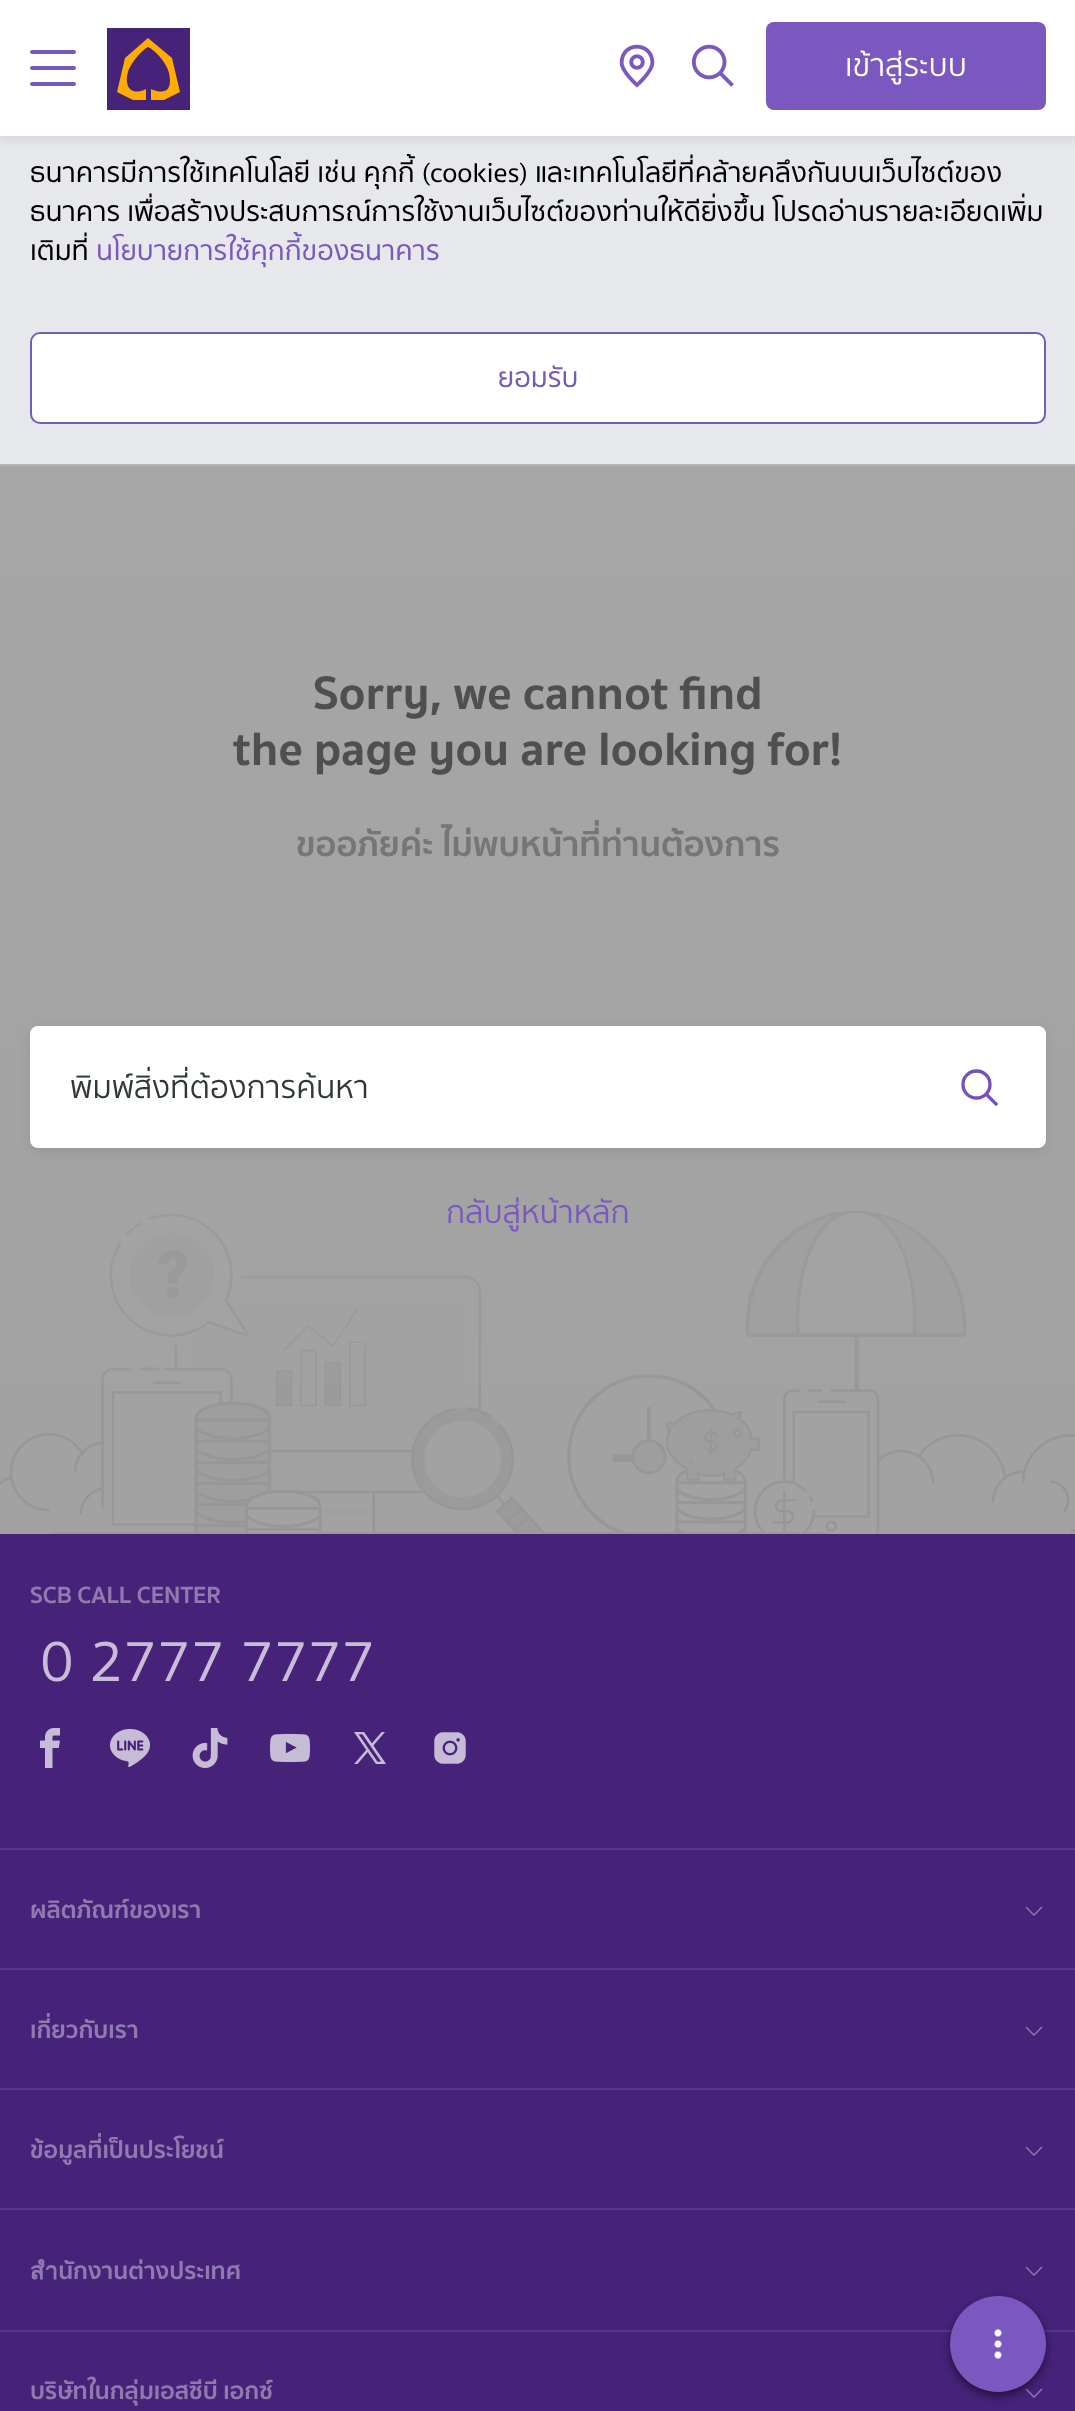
<svg xmlns="http://www.w3.org/2000/svg" width="1075" height="2411">
<defs>
<linearGradient id="g1" gradientUnits="userSpaceOnUse" x1="538" y1="466" x2="538" y2="1534"><stop offset="0" stop-color="#a6a6a6"/><stop offset="1" stop-color="#a6a6a6" stop-opacity="0"/></linearGradient>
<clipPath id="clip1"><rect x="70" y="1060" width="936" height="54"/></clipPath>
</defs>
<rect width="100%" height="100%" fill="#a2a2a3"/>
<rect y="136" width="1075" height="328" fill="#e6e8ec"/>
<rect y="4" width="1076" height="136" fill="#00000014" filter="blur(5px)"/>
<rect width="1075" height="136" fill="#fff"/>
<rect x="30" y="50" width="46" height="4" rx="2" fill="#7a58bf"/>
<rect x="30" y="66" width="46" height="4" rx="2" fill="#7a58bf"/>
<rect x="30" y="82" width="46" height="4" rx="2" fill="#7a58bf"/>
<rect x="107" y="28" width="83" height="82" fill="#462279"/>
<path d="M180 92l-8-34l-24-20l-23 20l-8 34l16 8h13v-11c-16 8-23-4-17-20c4-8 12-18 19-22c7 3 19 16 21 26c6 28-18 16-18 16v11h13z" fill="#feac00" fill-rule="evenodd"/>
<image x="619" y="44" width="36" height="44" href="media/1.png"/>
<image x="691" y="44" width="43" height="43" href="media/2.png"/>
<rect x="766" y="22" width="280" height="88" rx="8" fill="#7a58bf"/>
<text x="845" y="76" style="font-family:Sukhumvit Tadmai;font-size:32px;fill:#fff">เข้าสู่ระบบ</text>
<rect y="464" width="1075" height="2" fill="#b3b4b7"/>
<text x="30" y="182" style="font-family:Sukhumvit Tadmai;font-size:28px;font-weight:500;fill:#000">ธนาคารมีการใช้เทคโนโลยี เช่น คุกกี้ (cookies) และเทคโนโลยีที่คล้ายคลึงกันบนเว็บไซต์ของ</text>
<text x="30" y="221" style="font-family:Sukhumvit Tadmai;font-size:28px;font-weight:500;fill:#000">ธนาคาร เพื่อสร้างประสบการณ์การใช้งานเว็บไซต์ของท่านให้ดียิ่งขึ้น โปรดอ่านรายละเอียดเพิ่ม</text>
<text x="30" y="260" style="font-family:Sukhumvit Tadmai;font-size:28px;font-weight:500;fill:#000">เติมที่</text>
<text x="96" y="260" style="font-family:Sukhumvit Tadmai;font-size:28px;font-weight:500;fill:#7a58bf">นโยบายการใช้คุกกี้ของธนาคาร</text>
<rect x="31" y="333" width="1014" height="90" rx="9" fill="#fff" stroke="#745db9" stroke-width="2"/>
<text x="498" y="387" style="font-family:Sukhumvit Tadmai;font-size:28px;font-weight:500;fill:#745db9">ยอมรับ</text>
<image x="0" y="1211" width="1075" height="323" href="media/3.png"/>
<rect y="466" width="1075" height="917" fill="url(#g1)"/>
<text x="313" y="709" style="font-family:Sukhumvit Tadmai;font-size:48px;font-weight:bold;fill:#4f4f4f">Sorry, we cannot find</text>
<text x="233" y="765" style="font-family:Sukhumvit Tadmai;font-size:48px;font-weight:bold;fill:#4f4f4f">the page you are looking for!</text>
<text x="296" y="856" style="font-family:Sukhumvit Tadmai;font-size:34.5px;font-weight:bold;fill:#767676">ขออภัยค่ะ ไม่พบหน้าที่ท่านต้องการ</text>
<rect x="30" y="1030" width="1016" height="122" rx="8" fill="#00000012" filter="blur(6px)"/>
<rect x="30" y="1026" width="1016" height="122" rx="8" fill="#fff"/>
<g clip-path="url(#clip1)">
<text x="70" y="1098" style="font-family:Sukhumvit Tadmai;font-size:32px;fill:#30373b">พิมพ์สิ่งที่ต้องการค้นหา</text>
</g>
<path d="M987.5 1095.5l8.5 8.5" fill="none" stroke="#734fc2" stroke-width="3.3" stroke-linecap="square"/>
<circle cx="976.5" cy="1084.5" r="13.5" fill="none" stroke="#734fc2" stroke-width="3.3"/>
<text x="446" y="1223" style="font-family:Sukhumvit Tadmai;font-size:32px;fill:#7a58bf">กลับสู่หน้าหลัก</text>
<rect y="1534" width="1075" height="877" fill="#462279"/>
<rect y="1848" width="1075" height="2" fill="#53388d"/>
<text x="30" y="1603" style="font-family:Sukhumvit Tadmai;font-size:24px;font-weight:bold;fill:#907aaf">SCB CALL CENTER</text>
<text x="40" y="1681" style="font-family:Sukhumvit Tadmai;font-size:59.75px;fill:#c8bdd7">0 2777 7777</text>
<image x="40" y="1728" width="20" height="40" href="media/4.png"/>
<image x="110" y="1729" width="40" height="38" href="media/5.png"/>
<image x="192" y="1728" width="36" height="40" href="media/6.png"/>
<image x="270" y="1733" width="40" height="30" href="media/7.png"/>
<image x="354" y="1732" width="32" height="32" href="media/8.png"/>
<image x="434" y="1732" width="32" height="32" href="media/9.png"/>
<rect y="1968" width="1075" height="2" fill="#53388d"/>
<text x="30" y="1918" style="font-family:Sukhumvit Tadmai;font-size:24px;font-weight:bold;fill:#907aaf">ผลิตภัณฑ์ของเรา</text>
<path d="M1034 1914l-7.5-7.5l-1 1l8.5 8.5l8.5-8.5l-1-1z" fill="#907aaf"/>
<rect y="2088" width="1075" height="2" fill="#53388d"/>
<text x="30" y="2038" style="font-family:Sukhumvit Tadmai;font-size:24px;font-weight:bold;fill:#907aaf">เกี่ยวกับเรา</text>
<path d="M1034 2034l-7.5-7.5l-1 1l8.5 8.5l8.5-8.5l-1-1z" fill="#907aaf"/>
<rect y="2208" width="1075" height="2" fill="#53388d"/>
<text x="30" y="2158" style="font-family:Sukhumvit Tadmai;font-size:24px;font-weight:bold;fill:#907aaf">ข้อมูลที่เป็นประโยชน์</text>
<path d="M1034 2154l-7.5-7.5l-1 1l8.5 8.5l8.5-8.5l-1-1z" fill="#907aaf"/>
<rect y="2330" width="1075" height="2" fill="#53388d"/>
<text x="30" y="2279" style="font-family:Sukhumvit Tadmai;font-size:24px;font-weight:bold;fill:#907aaf">สำนักงานต่างประเทศ</text>
<path d="M1034 2274l-7.5-7.5l-1 1l8.5 8.5l8.5-8.5l-1-1z" fill="#907aaf"/>
<text x="30" y="2399" style="font-family:Sukhumvit Tadmai;font-size:24px;font-weight:bold;fill:#907aaf">บริษัทในกลุ่มเอสซีบี เอกซ์</text>
<path d="M1034 2396l-7.5-7.5l-1 1l8.5 8.5l8.5-8.5l-1-1z" fill="#907aaf"/>
<rect x="950" y="2300" width="96" height="96" rx="48" fill="#00000080" filter="blur(4px)"/>
<circle cx="998" cy="2344" r="48" fill="#7a58bf"/>
<image x="994" y="2329" width="8" height="30" href="media/10.png"/>
</svg>
